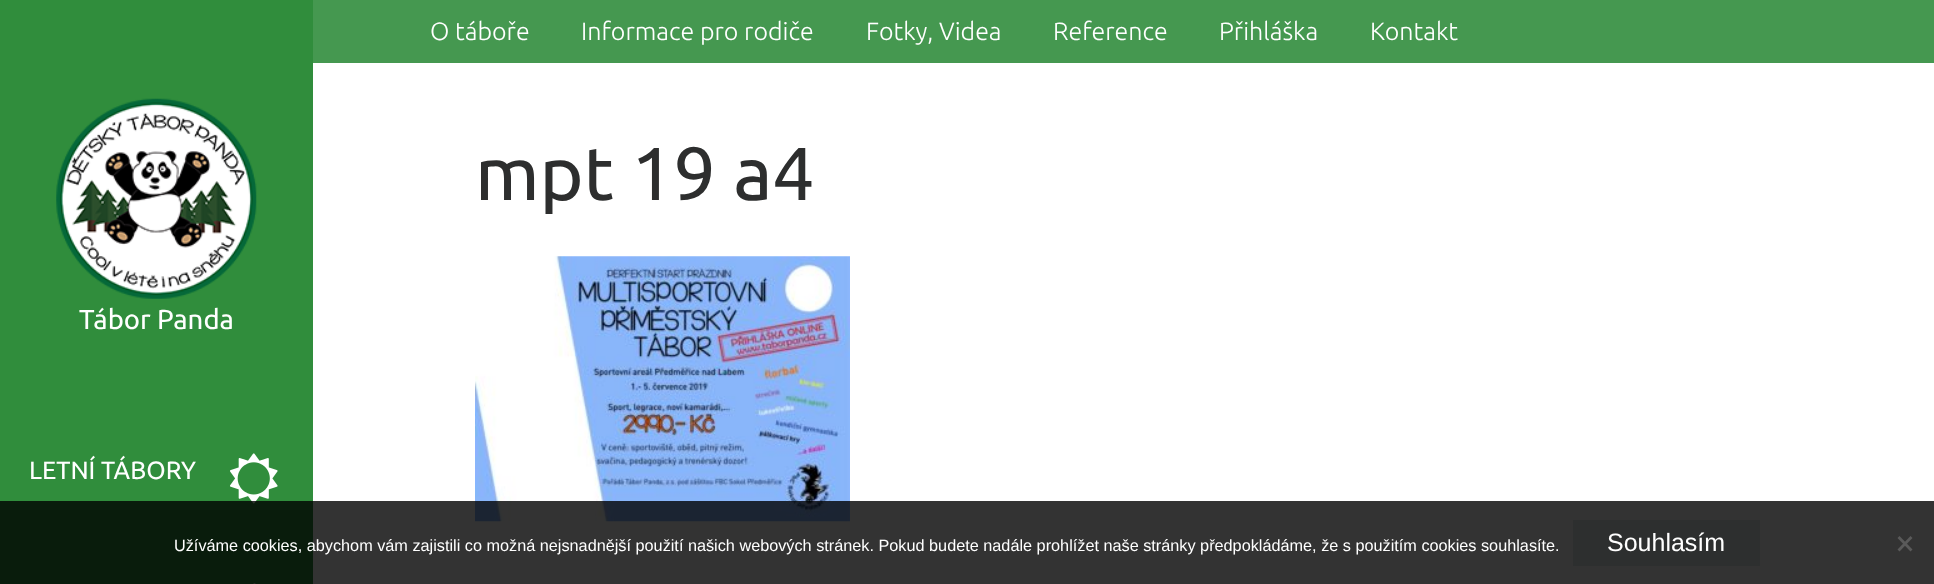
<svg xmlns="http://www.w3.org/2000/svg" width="1934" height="584">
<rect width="100%" height="100%" fill="#fff"/>
<rect x="313" width="1621" height="63" fill="#459850"/>
<text x="430" y="40" style="font-family:Ubuntu;font-size:25px;font-weight:300;fill:#fff">O táboře</text>
<text x="581" y="40" style="font-family:Ubuntu;font-size:25px;font-weight:300;fill:#fff">Informace pro rodiče</text>
<text x="866" y="40" style="font-family:Ubuntu;font-size:25px;font-weight:300;fill:#fff">Fotky, Videa</text>
<text x="1053" y="40" style="font-family:Ubuntu;font-size:25px;font-weight:300;fill:#fff">Reference</text>
<text x="1219" y="40" style="font-family:Ubuntu;font-size:25px;font-weight:300;fill:#fff">Přihláška</text>
<text x="1370" y="40" style="font-family:Ubuntu;font-size:25px;font-weight:300;fill:#fff">Kontakt</text>
<text x="475" y="200" style="font-family:Ubuntu;font-size:75px;fill:#2d2e2e">mpt 19 a4</text>
<image x="475" y="256" width="375" height="266" href="media/1.png"/>
<rect width="313" height="584" fill="#308d3c"/>
<image x="56" y="98" width="201" height="201" href="media/2.png"/>
<text x="79" y="329" style="font-family:Ubuntu;font-size:27.5px;fill:#fff">Tábor Panda</text>
<text x="29" y="479" style="font-family:Ubuntu;font-size:25px;fill:#fff">LETNÍ TÁBORY</text>
<image x="230" y="453" width="48" height="51" href="media/3.png"/>
<image x="253" y="583" width="3" height="1" href="media/4.png"/>
<rect y="501" width="1934" height="83" fill="#000000cc"/>
<text x="174" y="551" style="font-family:Liberation Sans;font-size:16.25px;fill:#fff">Užíváme cookies, abychom vám zajistili co možná nejsnadnější použití našich webových stránek. Pokud budete nadále prohlížet naše stránky předpokládáme, že s použitím cookies souhlasíte.</text>
<rect x="1573" y="520" width="187" height="46" fill="#2d2f2f"/>
<text x="1607" y="551" style="font-family:Liberation Sans;font-size:25px;fill:#fff">Souhlasím</text>
<path d="M1910.5 536l2 2l-13 13.5l-2-2z" fill="#5a5a5a"/>
<path d="M1897.5 538l2-2l13 13.5l-2 2z" fill="#5a5a5a"/>
</svg>
